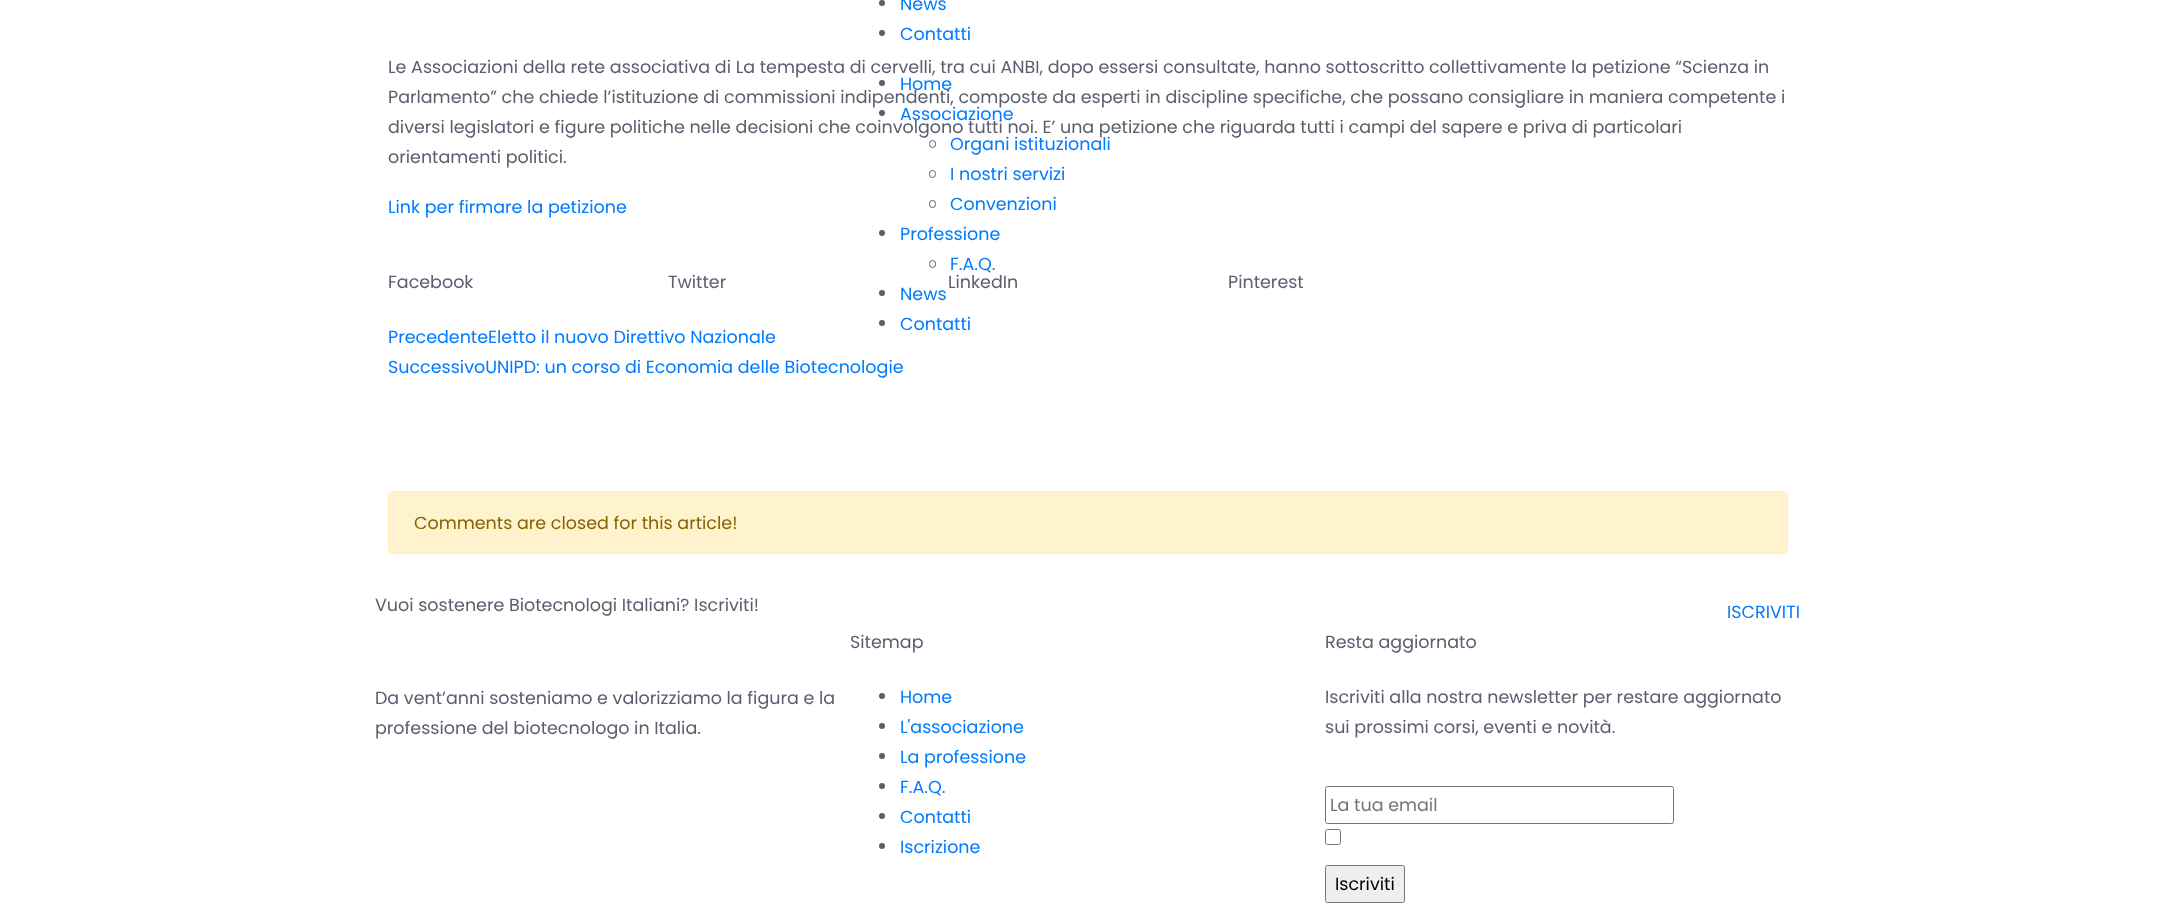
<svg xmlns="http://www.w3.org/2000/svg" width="2174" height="913">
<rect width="100%" height="100%" fill="#fff"/>
<circle cx="882" cy="3" r="3" fill="#595f6e"/>
<text x="900" y="10" style="font-family:Poppins;font-size:17.5px;fill:#007bff">News</text>
<circle cx="882" cy="33" r="3" fill="#595f6e"/>
<text x="900" y="40" style="font-family:Poppins;font-size:17.5px;fill:#007bff">Contatti</text>
<circle cx="882" cy="83" r="3" fill="#595f6e"/>
<text x="900" y="90" style="font-family:Poppins;font-size:17.5px;fill:#007bff">Home</text>
<circle cx="882" cy="113" r="3" fill="#595f6e"/>
<text x="900" y="120" style="font-family:Poppins;font-size:17.5px;fill:#007bff">Associazione</text>
<rect x="929.5" y="140.5" width="6" height="7" rx="3" fill="none" stroke="#595f6e"/>
<text x="950" y="150" style="font-family:Poppins;font-size:17.5px;fill:#007bff">Organi istituzionali</text>
<rect x="929.5" y="170.5" width="6" height="7" rx="3" fill="none" stroke="#595f6e"/>
<text x="950" y="180" style="font-family:Poppins;font-size:17.5px;fill:#007bff">I nostri servizi</text>
<rect x="929.5" y="200.5" width="6" height="7" rx="3" fill="none" stroke="#595f6e"/>
<text x="950" y="210" style="font-family:Poppins;font-size:17.5px;fill:#007bff">Convenzioni</text>
<circle cx="882" cy="233" r="3" fill="#595f6e"/>
<text x="900" y="240" style="font-family:Poppins;font-size:17.5px;fill:#007bff">Professione</text>
<rect x="929.5" y="260.5" width="6" height="7" rx="3" fill="none" stroke="#595f6e"/>
<text x="950" y="270" style="font-family:Poppins;font-size:17.5px;fill:#007bff">F.A.Q.</text>
<circle cx="882" cy="293" r="3" fill="#595f6e"/>
<text x="900" y="300" style="font-family:Poppins;font-size:17.5px;fill:#007bff">News</text>
<circle cx="882" cy="323" r="3" fill="#595f6e"/>
<text x="900" y="330" style="font-family:Poppins;font-size:17.5px;fill:#007bff">Contatti</text>
<text x="388" y="73" style="font-family:Poppins;font-size:17.5px;fill:#595f6e">Le Associazioni della rete associativa di La tempesta di cervelli, tra cui ANBI, dopo essersi consultate, hanno sottoscritto collettivamente la petizione “Scienza in</text>
<text x="388" y="103" style="font-family:Poppins;font-size:17.5px;fill:#595f6e">Parlamento” che chiede l’istituzione di commissioni indipendenti, composte da esperti in discipline specifiche, che possano consigliare in maniera competente i</text>
<text x="388" y="133" style="font-family:Poppins;font-size:17.5px;fill:#595f6e">diversi legislatori e figure politiche nelle decisioni che coinvolgono tutti noi. E’ una petizione che riguarda tutti i campi del sapere e priva di particolari</text>
<text x="388" y="163" style="font-family:Poppins;font-size:17.5px;fill:#595f6e">orientamenti politici.</text>
<text x="388" y="213" style="font-family:Poppins;font-size:17.5px;fill:#007bff">Link per firmare la petizione</text>
<text x="388" y="288" style="font-family:Poppins;font-size:17.5px;fill:#595f6e">Facebook</text>
<text x="668" y="288" style="font-family:Poppins;font-size:17.5px;fill:#595f6e">Twitter</text>
<text x="948" y="288" style="font-family:Poppins;font-size:17.5px;fill:#595f6e">LinkedIn</text>
<text x="1228" y="288" style="font-family:Poppins;font-size:17.5px;fill:#595f6e">Pinterest</text>
<text x="388" y="343" style="font-family:Poppins;font-size:17.5px;fill:#007bff">PrecedenteEletto il nuovo Direttivo Nazionale</text>
<text x="388" y="373" style="font-family:Poppins;font-size:17.5px;fill:#007bff">SuccessivoUNIPD: un corso di Economia delle Biotecnologie</text>
<rect x="388.5" y="491.5" width="1399" height="62" rx="4.5" fill="#fff3cd" stroke="#ffeeba"/>
<text x="414" y="529" style="font-family:Poppins;font-size:17.5px;fill:#856404">Comments are closed for this article!</text>
<text x="375" y="611" style="font-family:Poppins;font-size:17.5px;fill:#595f6e">Vuoi sostenere Biotecnologi Italiani? Iscriviti!</text>
<text x="1727" y="618" style="font-family:Poppins;font-size:17.5px;fill:#007bff">ISCRIVITI</text>
<text x="375" y="704" style="font-family:Poppins;font-size:17.5px;fill:#595f6e">Da vent’anni sosteniamo e valorizziamo la figura e la</text>
<text x="375" y="734" style="font-family:Poppins;font-size:17.5px;fill:#595f6e">professione del biotecnologo in Italia.</text>
<text x="850" y="648" style="font-family:Poppins;font-size:17.5px;fill:#595f6e">Sitemap</text>
<circle cx="882" cy="696" r="3" fill="#595f6e"/>
<text x="900" y="703" style="font-family:Poppins;font-size:17.5px;fill:#007bff">Home</text>
<circle cx="882" cy="726" r="3" fill="#595f6e"/>
<text x="900" y="733" style="font-family:Poppins;font-size:17.5px;fill:#007bff">L'associazione</text>
<circle cx="882" cy="756" r="3" fill="#595f6e"/>
<text x="900" y="763" style="font-family:Poppins;font-size:17.5px;fill:#007bff">La professione</text>
<circle cx="882" cy="786" r="3" fill="#595f6e"/>
<text x="900" y="793" style="font-family:Poppins;font-size:17.5px;fill:#007bff">F.A.Q.</text>
<circle cx="882" cy="816" r="3" fill="#595f6e"/>
<text x="900" y="823" style="font-family:Poppins;font-size:17.5px;fill:#007bff">Contatti</text>
<circle cx="882" cy="846" r="3" fill="#595f6e"/>
<text x="900" y="853" style="font-family:Poppins;font-size:17.5px;fill:#007bff">Iscrizione</text>
<text x="1325" y="648" style="font-family:Poppins;font-size:17.5px;fill:#595f6e">Resta aggiornato</text>
<text x="1325" y="703" style="font-family:Poppins;font-size:17.5px;fill:#595f6e">Iscriviti alla nostra newsletter per restare aggiornato</text>
<text x="1325" y="733" style="font-family:Poppins;font-size:17.5px;fill:#595f6e">sui prossimi corsi, eventi e novità.</text>
<rect x="1325.5" y="786.5" width="348" height="37" rx="2" fill="none" stroke="#767676"/>
<text x="1330" y="811" style="font-family:Poppins;font-size:17.5px;fill:#757575">La tua email</text>
<rect x="1325.5" y="829.5" width="15" height="15" rx="2" fill="none" stroke="#767676"/>
<rect x="1325.5" y="865.5" width="79" height="37" rx="2" fill="#efefef" stroke="#767676"/>
<text x="1335" y="890" style="font-family:Poppins;font-size:17.5px;fill:#000">Iscriviti</text>
</svg>
